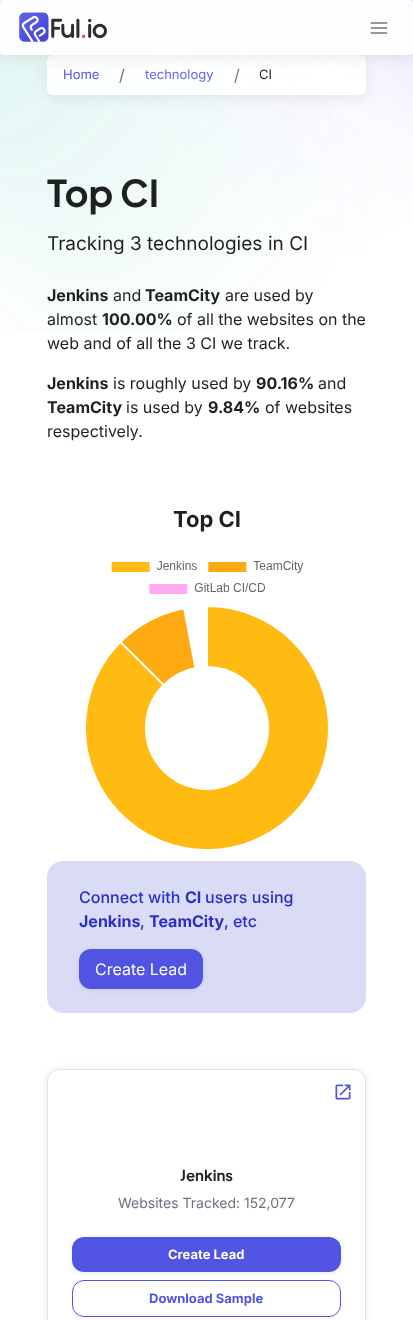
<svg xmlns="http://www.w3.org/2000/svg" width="413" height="1320">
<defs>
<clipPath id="clip1"><path d="M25 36h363v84h-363zm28 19h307c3.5 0 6 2.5 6 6v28c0 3.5-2.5 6-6 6h-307c-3.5 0-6-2.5-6-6v-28c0-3.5 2.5-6 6-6z" clip-rule="evenodd"/></clipPath>
<clipPath id="clip2"><path d="M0 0h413v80h-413zm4 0h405c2 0 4 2 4 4v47c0 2-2 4-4 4h-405c-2 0-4-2-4-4v-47c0-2 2-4 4-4z" clip-rule="evenodd"/></clipPath>
</defs>
<rect width="100%" height="100%" fill="#fff"/>
<image x="0" y="0" width="413" height="332" href="media/2.png"/>
<g clip-path="url(#clip1)">
<rect x="47" y="58" width="319" height="40" rx="6" fill="#00000014" filter="blur(7px)"/>
</g>
<rect x="47" y="55" width="319" height="40" rx="6" fill="#ffffffe6"/>
<g clip-path="url(#clip2)">
<rect y="3" width="413" height="55" rx="4" fill="#00000014" filter="blur(7px)"/>
</g>
<rect width="413" height="55" rx="4" fill="#ffffffe6"/>
<image x="19" y="12" width="88" height="30" href="media/1.png"/>
<path d="M371.5 28h15m-15-5h15m-15 10h15" fill="none" stroke="#757575" stroke-width="1.7" stroke-linecap="round" stroke-linejoin="round"/>
<text x="63" y="79" style="font-family:Inter;font-size:13px;fill:#5154e3">Home</text>
<text x="119" y="81" style="font-family:Inter;font-size:16px;fill:#6c737f">/</text>
<text x="145" y="79" style="font-family:Inter;font-size:13px;fill:#6366f1">technology</text>
<text x="234" y="81" style="font-family:Inter;font-size:16px;fill:#6c737f">/</text>
<text x="259" y="79" style="font-family:Inter;font-size:13px;fill:#1f2120">CI</text>
<text x="47" y="207" style="font-family:Plus Jakarta Sans;font-size:37px;font-weight:bold;fill:#1f2120">Top CI</text>
<text x="47" y="250" style="font-family:Inter;font-size:19px;fill:#1f2120">Tracking</text>
<text x="130" y="250" style="font-family:Inter;font-size:19px;fill:#1f2120">3 technologies</text>
<text x="268" y="250" style="font-family:Inter;font-size:19px;fill:#1f2120">in CI</text>
<text x="47" y="301" style="font-family:Inter;font-size:16px;font-weight:bold;fill:#1f2120">Jenkins</text>
<text x="113" y="301" style="font-family:Inter;font-size:16px;fill:#1f2120">and</text>
<text x="145" y="301" style="font-family:Inter;font-size:16px;font-weight:bold;fill:#1f2120">TeamCity</text>
<text x="225" y="301" style="font-family:Inter;font-size:16px;fill:#1f2120">are used by</text>
<text x="47" y="325" style="font-family:Inter;font-size:16px;fill:#1f2120">almost</text>
<text x="102" y="325" style="font-family:Inter;font-size:16px;font-weight:bold;fill:#1f2120">100.00%</text>
<text x="177" y="325" style="font-family:Inter;font-size:16px;fill:#1f2120">of all the websites on the</text>
<text x="47" y="349" style="font-family:Inter;font-size:16px;fill:#1f2120">web and of all the 3 CI we track.</text>
<text x="47" y="389" style="font-family:Inter;font-size:16px;font-weight:bold;fill:#1f2120">Jenkins</text>
<text x="113" y="389" style="font-family:Inter;font-size:16px;fill:#1f2120">is roughly used by</text>
<text x="256" y="389" style="font-family:Inter;font-size:16px;font-weight:bold;fill:#1f2120">90.16%</text>
<text x="318" y="389" style="font-family:Inter;font-size:16px;fill:#1f2120">and</text>
<text x="47" y="413" style="font-family:Inter;font-size:16px;font-weight:bold;fill:#1f2120">TeamCity</text>
<text x="126" y="413" style="font-family:Inter;font-size:16px;fill:#1f2120">is used by</text>
<text x="208" y="413" style="font-family:Inter;font-size:16px;font-weight:bold;fill:#1f2120">9.84%</text>
<text x="265" y="413" style="font-family:Inter;font-size:16px;fill:#1f2120">of websites</text>
<text x="47" y="437" style="font-family:Inter;font-size:16px;fill:#1f2120">respectively.</text>
<text x="173" y="527" style="font-family:Inter;font-size:22px;font-weight:bold;fill:#1f2120">Top CI</text>
<image x="85" y="561" width="243" height="288" href="media/3.png"/>
<rect x="47" y="861" width="319" height="152" rx="16" fill="#dadbf5"/>
<text x="79" y="903" style="font-family:Inter;font-size:16px;font-weight:500;fill:#2b2ec9">Connect with</text>
<text x="185" y="903" style="font-family:Inter;font-size:16px;font-weight:bold;fill:#2b2ec9">CI</text>
<text x="205" y="903" style="font-family:Inter;font-size:16px;font-weight:500;fill:#2b2ec9">users using</text>
<text x="79" y="927" style="font-family:Inter;font-size:16px;font-weight:bold;fill:#2b2ec9">Jenkins</text>
<text x="140" y="927" style="font-family:Inter;font-size:16px;font-weight:500;fill:#2b2ec9">,</text>
<text x="149" y="927" style="font-family:Inter;font-size:16px;font-weight:bold;fill:#2b2ec9">TeamCity</text>
<text x="224" y="927" style="font-family:Inter;font-size:16px;font-weight:500;fill:#2b2ec9">, etc</text>
<rect x="79" y="950" width="124" height="40" rx="12" fill="#00000014" filter="blur(2.5px)"/>
<rect x="79" y="949" width="124" height="40" rx="12" fill="#5154e3"/>
<text x="95" y="975" style="font-family:Inter;font-size:16px;fill:#fff">Create Lead</text>
<rect x="47" y="1070" width="319" height="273" rx="12" fill="#00000014" filter="blur(4px)"/>
<rect x="47.5" y="1069.5" width="318" height="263" rx="11.5" fill="#fff" stroke="#e0e0e0"/>
<image x="335" y="1084" width="16" height="16" href="media/4.png"/>
<text x="180" y="1181" style="font-family:Plus Jakarta Sans;font-size:15px;font-weight:bold;fill:#1f2120">Jenkins</text>
<text x="118" y="1208" style="font-family:Inter;font-size:14px;fill:#6c737f">Websites Tracked: 152,077</text>
<rect x="72" y="1238" width="269" height="35" rx="12" fill="#00000014" filter="blur(2.5px)"/>
<rect x="72" y="1237" width="269" height="35" rx="12" fill="#5154e3"/>
<text x="168" y="1259" style="font-family:Inter;font-size:13px;font-weight:bold;fill:#fff">Create Lead</text>
<rect x="72.5" y="1280.5" width="268" height="36" rx="11.5" fill="none" stroke="#5154e3"/>
<text x="149" y="1303" style="font-family:Inter;font-size:13px;font-weight:bold;fill:#5154e3">Download Sample</text>
</svg>
